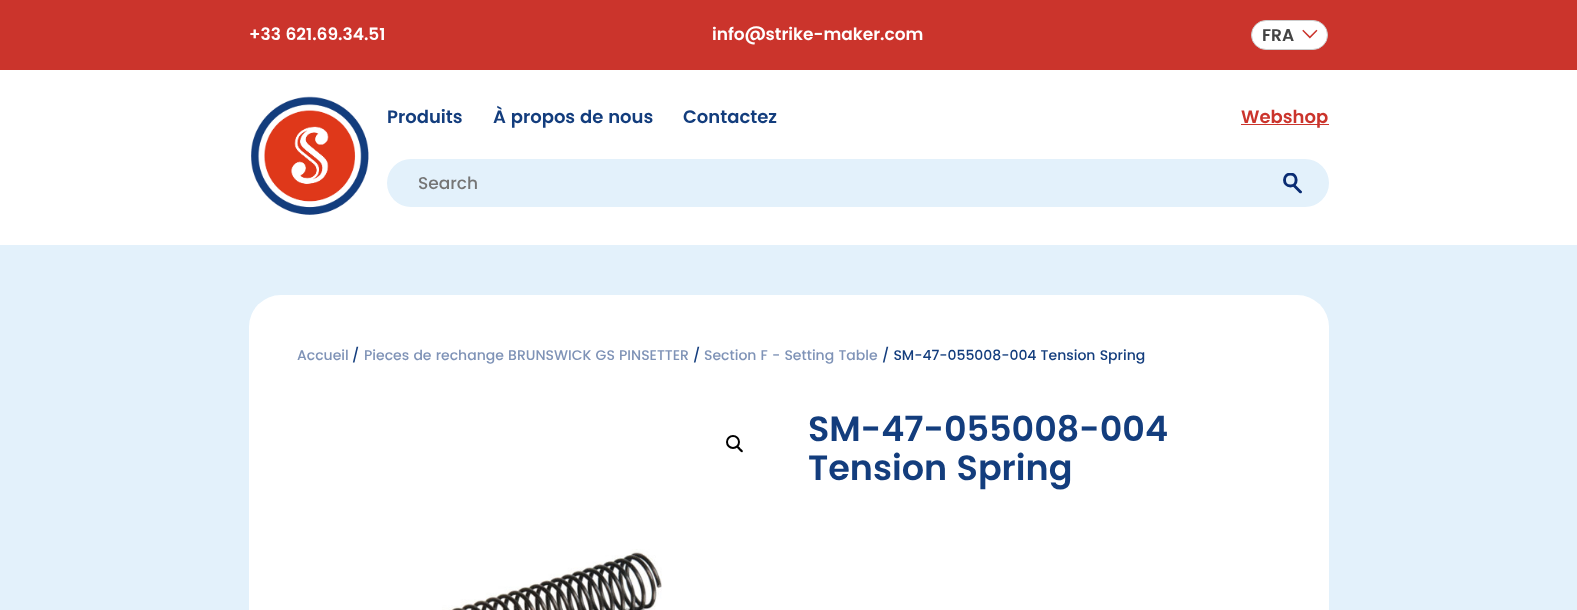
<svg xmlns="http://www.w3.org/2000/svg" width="1577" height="610">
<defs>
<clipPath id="clip1"><rect x="1283" y="173" width="19" height="21"/></clipPath>
<clipPath id="clip2"><path d="M1283 193.5h19v-20.5h-19z"/></clipPath>
</defs>
<rect width="100%" height="100%" fill="#e3f1fb"/>
<rect y="70" width="1577" height="175" fill="#fff"/>
<rect width="1577" height="70" fill="#cb342c"/>
<text x="249" y="40" style="font-family:Poppins;font-size:17px;font-weight:600;fill:#fff">+33 621.69.34.51</text>
<text x="712" y="40" style="font-family:Poppins;font-size:17px;font-weight:600;fill:#fff">info@strike-maker.com</text>
<rect x="1251.5" y="20.5" width="76" height="29" rx="14.5" fill="#fff" stroke="#cdcdcd"/>
<text x="1262" y="41" style="font-family:Poppins;font-size:17px;font-weight:600;fill:#444">FRA</text>
<text x="1302" y="38" style="font-family:FreeSerif;font-size:20px;font-weight:bold;fill:#cb342c">⌵</text>
<image x="251" y="96" width="118" height="119" href="media/1.png"/>
<text x="387" y="123" style="font-family:Poppins;font-size:18px;font-weight:600;fill:#133d7d">Produits</text>
<text x="493" y="123" style="font-family:Poppins;font-size:18px;font-weight:600;fill:#133d7d">À propos de nous</text>
<text x="683" y="123" style="font-family:Poppins;font-size:18px;font-weight:600;fill:#133d7d">Contactez</text>
<rect x="1241" y="124" width="88" height="1" fill="#cb342c"/>
<text x="1241" y="123" style="font-family:Poppins;font-size:18px;font-weight:600;fill:#cb342c">Webshop</text>
<rect x="387" y="159" width="942" height="48" rx="24" fill="#e3f1fb"/>
<text x="418" y="189" style="font-family:Poppins;font-size:17px;font-weight:500;fill:#757575">Search</text>
<g clip-path="url(#clip1)">
<path d="M1290.5 186c7.5 0 7.5-12 0-12c-8 0-8 12 0 12z" fill="none" stroke="#0a2c73" stroke-width="2.9"/>
</g>
<g clip-path="url(#clip2)">
<path d="M1294.5 186l6 6" fill="none" stroke="#0a2c73" stroke-width="2.9" stroke-linecap="round"/>
</g>
<rect x="249" y="295" width="1080" height="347" rx="32" fill="#fff"/>
<text x="297" y="360" style="font-family:Poppins;font-size:14px;font-weight:500;fill:#7f93b7">Accueil</text>
<text x="352" y="360" style="font-family:Poppins;font-size:14px;font-weight:500;fill:#133d7d">/</text>
<text x="364" y="360" style="font-family:Poppins;font-size:14px;font-weight:500;fill:#7f93b7">Pieces de rechange BRUNSWICK GS PINSETTER</text>
<text x="693" y="360" style="font-family:Poppins;font-size:14px;font-weight:500;fill:#133d7d">/</text>
<text x="704" y="360" style="font-family:Poppins;font-size:14px;font-weight:500;fill:#7f93b7">Section F - Setting Table</text>
<text x="882" y="360" style="font-family:Poppins;font-size:14px;font-weight:500;fill:#133d7d">/ SM-47-055008-004 Tension Spring</text>
<circle cx="733" cy="442" r="6" fill="none" stroke="#000" stroke-width="2"/>
<path d="M737 446.5c1-1.5 3 1.5 3.5 2c.5 .5 3.5 2.5 2 3.5c-1 1-3-1.5-3.5-2c-.5-1-3-2.5-2-3.5z" fill="#000"/>
<image x="442" y="549" width="220" height="61" href="media/2.png"/>
<text x="808" y="441" style="font-family:Poppins;font-size:35px;font-weight:600;fill:#133d7d">SM-47-055008-004</text>
<text x="808" y="480" style="font-family:Poppins;font-size:35px;font-weight:600;fill:#133d7d">Tension Spring</text>
</svg>
